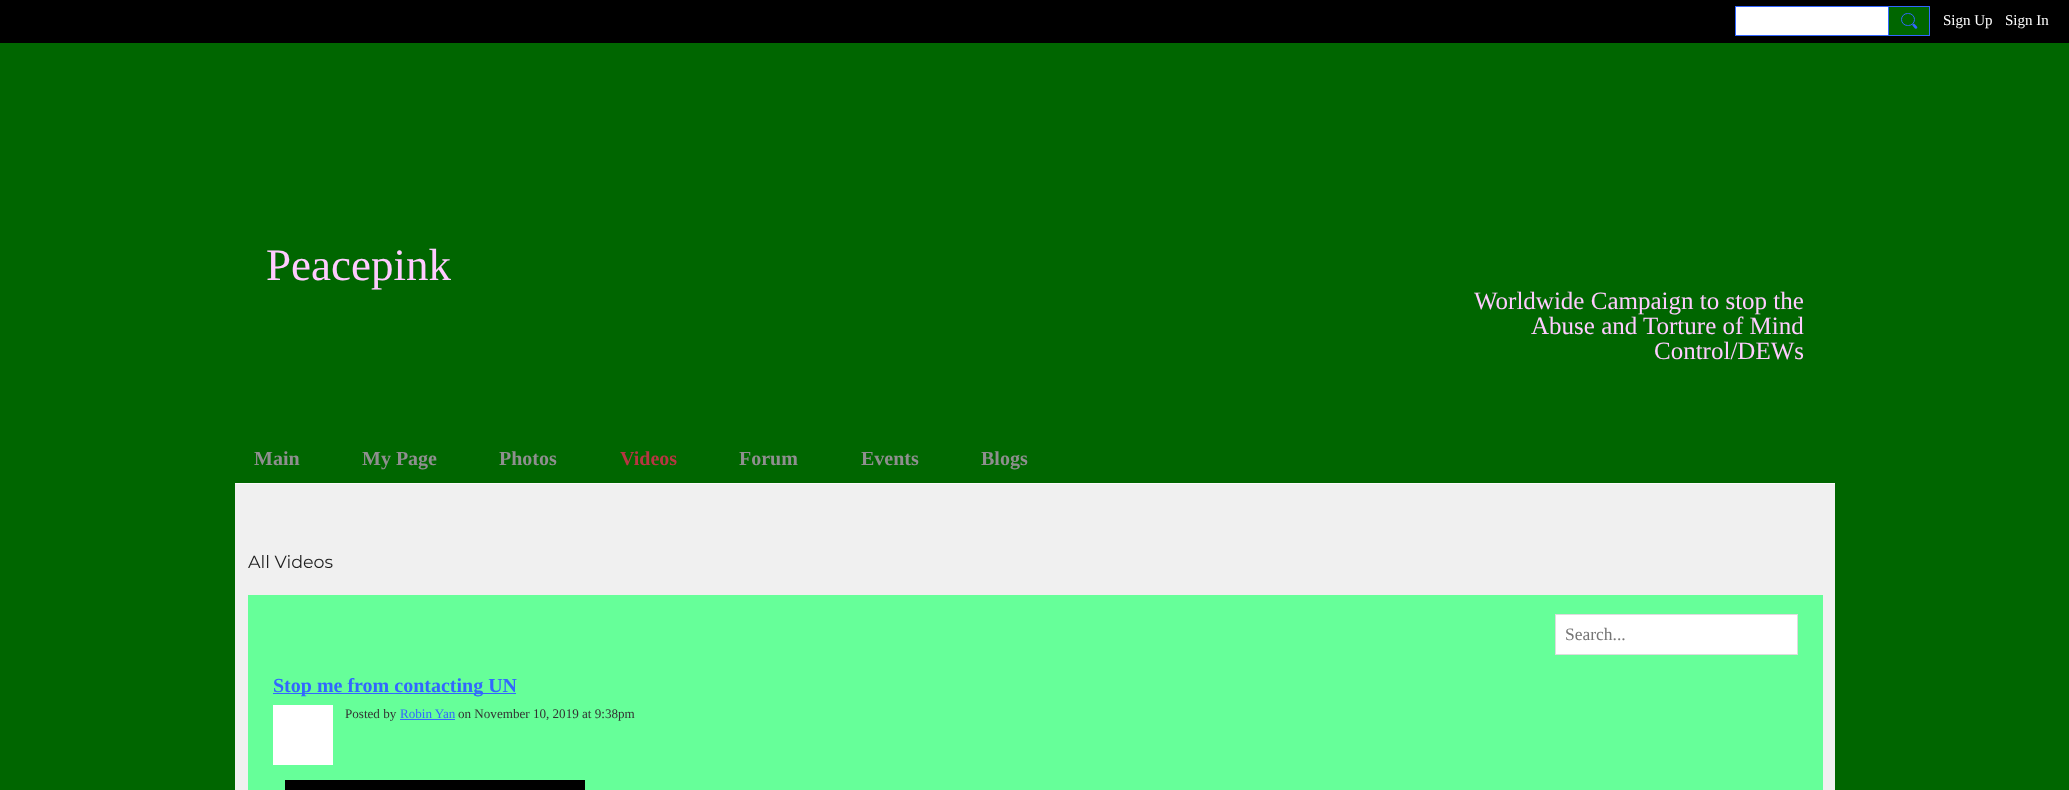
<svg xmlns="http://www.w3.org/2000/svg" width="2069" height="790">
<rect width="100%" height="100%" fill="#060"/>
<rect width="2069" height="43" fill="#000"/>
<rect x="1735.5" y="6.5" width="153" height="29" fill="#fff" stroke="#36f"/>
<rect x="1888.5" y="6.5" width="41" height="29" fill="#060" stroke="#36f"/>
<rect x="1901.5" y="13.5" width="13" height="12" rx="6" fill="none" stroke="#36f"/>
<path d="M1914.5 24l2 2c2 2 0 3.5-1.5 2.5l-2.5-3c-1-1 1-2.5 2-1.5z" fill="#36f"/>
<text x="1943" y="25" style="font-family:Liberation Serif;font-size:15px;fill:#fff">Sign Up</text>
<text x="2005" y="25" style="font-family:Liberation Serif;font-size:15px;fill:#fff">Sign In</text>
<text x="266" y="280" style="font-family:Liberation Serif;font-size:45px;fill:#fcf">Peacepink</text>
<text x="1474" y="309" style="font-family:Liberation Serif;font-size:25px;fill:#fcf">Worldwide Campaign to stop the</text>
<text x="1531" y="334" style="font-family:Liberation Serif;font-size:25px;fill:#fcf">Abuse and Torture of Mind</text>
<text x="1654" y="359" style="font-family:Liberation Serif;font-size:25px;fill:#fcf">Control/DEWs</text>
<text x="254" y="465" style="font-family:Liberation Serif;font-size:20px;font-weight:bold;fill:#8f8f8f">Main</text>
<text x="362" y="465" style="font-family:Liberation Serif;font-size:20px;font-weight:bold;fill:#8f8f8f">My Page</text>
<text x="499" y="465" style="font-family:Liberation Serif;font-size:20px;font-weight:bold;fill:#8f8f8f">Photos</text>
<text x="620" y="465" style="font-family:Liberation Serif;font-size:20px;font-weight:bold;fill:#b63642">Videos</text>
<text x="739" y="465" style="font-family:Liberation Serif;font-size:20px;font-weight:bold;fill:#8f8f8f">Forum</text>
<text x="861" y="465" style="font-family:Liberation Serif;font-size:20px;font-weight:bold;fill:#8f8f8f">Events</text>
<text x="981" y="465" style="font-family:Liberation Serif;font-size:20px;font-weight:bold;fill:#8f8f8f">Blogs</text>
<rect x="235" y="484" width="1600" height="306" fill="#f0f0f0"/>
<rect x="235" y="483" width="1600" height="1" fill="#fbfbfb"/>
<text x="248" y="568" style="font-family:Montserrat;font-size:17.5px;font-weight:100;fill:#1f1f1f">All Videos</text>
<rect x="248" y="595" width="1575" height="195" fill="#6f9"/>
<rect x="1555.5" y="614.5" width="242" height="40" fill="#fff" stroke="#ddd"/>
<text x="1565" y="640" style="font-family:Liberation Serif;font-size:17.5px;fill:#757575">Search...</text>
<rect x="273" y="693" width="243" height="1" fill="#36f"/>
<text x="273" y="692" style="font-family:Liberation Serif;font-size:20px;font-weight:bold;fill:#36f">Stop me from contacting UN</text>
<rect x="273" y="705" width="60" height="60" fill="#fff"/>
<text x="345" y="718" style="font-family:Liberation Serif;font-size:13.1px;fill:#333">Posted by</text>
<text x="400" y="718" style="font-family:Liberation Serif;font-size:13.1px;fill:#36f">Robin Yan</text>
<rect x="400" y="719" width="55" height="1" fill="#36f"/>
<text x="458" y="718" style="font-family:Liberation Serif;font-size:13.1px;fill:#333">on November 10, 2019 at 9:38pm</text>
<rect x="285" y="780" width="300" height="10" fill="#000"/>
</svg>
